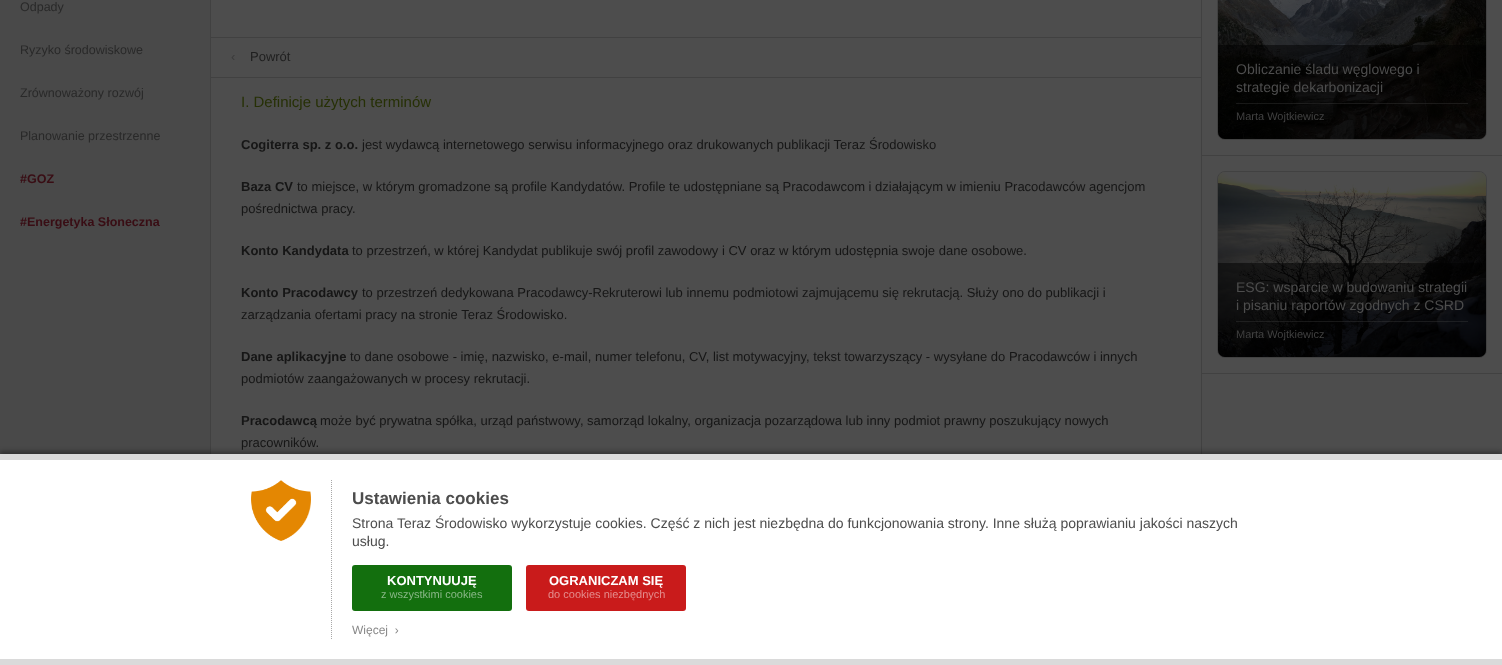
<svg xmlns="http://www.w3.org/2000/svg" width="1502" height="665">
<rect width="100%" height="100%" fill="#4d4d4d"/>
<rect width="210" height="454" fill="#494949"/>
<rect x="210" width="1" height="454" fill="#414141"/>
<text x="20" y="11" style="font-family:Liberation Sans;font-size:12.5px;fill:#292929">Odpady</text>
<text x="20" y="54" style="font-family:Liberation Sans;font-size:12.5px;fill:#292929">Ryzyko środowiskowe</text>
<text x="20" y="97" style="font-family:Liberation Sans;font-size:12.5px;fill:#292929">Zrównoważony rozwój</text>
<text x="20" y="140" style="font-family:Liberation Sans;font-size:12.5px;fill:#292929">Planowanie przestrzenne</text>
<text x="20" y="183" style="font-family:Liberation Sans;font-size:12.5px;font-weight:bold;fill:#390d14">#GOZ</text>
<text x="20" y="226" style="font-family:Liberation Sans;font-size:12.5px;font-weight:bold;fill:#390d14">#Energetyka Słoneczna</text>
<rect x="211" y="37" width="990" height="1" fill="#414141"/>
<rect x="211" y="77" width="990" height="1" fill="#414141"/>
<text x="231" y="61" style="font-family:Liberation Sans;font-size:13px;fill:#3a3a3a">‹</text>
<text x="250" y="61" style="font-family:Liberation Sans;font-size:13px;fill:#1f1f1f">Powrót</text>
<text x="241" y="107" style="font-family:Liberation Sans;font-size:15px;fill:#263005">I. Definicje użytych terminów</text>
<text x="241" y="149" style="font-family:Liberation Sans;font-size:13px;font-weight:bold;fill:#161616">Cogiterra sp. z o.o.</text>
<text x="362" y="149" style="font-family:Liberation Sans;font-size:13px;fill:#161616">jest wydawcą internetowego serwisu informacyjnego oraz drukowanych publikacji Teraz Środowisko</text>
<text x="241" y="191" style="font-family:Liberation Sans;font-size:13px;font-weight:bold;fill:#161616">Baza CV</text>
<text x="297" y="191" style="font-family:Liberation Sans;font-size:13px;fill:#161616">to miejsce, w którym gromadzone są profile Kandydatów. Profile te udostępniane są Pracodawcom i działającym w imieniu Pracodawców agencjom</text>
<text x="241" y="213" style="font-family:Liberation Sans;font-size:13px;fill:#161616">pośrednictwa pracy.</text>
<text x="241" y="255" style="font-family:Liberation Sans;font-size:13px;font-weight:bold;fill:#161616">Konto Kandydata</text>
<text x="352" y="255" style="font-family:Liberation Sans;font-size:13px;fill:#161616">to przestrzeń, w której Kandydat publikuje swój profil zawodowy i CV oraz w którym udostępnia swoje dane osobowe.</text>
<text x="241" y="297" style="font-family:Liberation Sans;font-size:13px;font-weight:bold;fill:#161616">Konto Pracodawcy</text>
<text x="362" y="297" style="font-family:Liberation Sans;font-size:13px;fill:#161616">to przestrzeń dedykowana Pracodawcy-Rekruterowi lub innemu podmiotowi zajmującemu się rekrutacją. Służy ono do publikacji i</text>
<text x="241" y="319" style="font-family:Liberation Sans;font-size:13px;fill:#161616">zarządzania ofertami pracy na stronie Teraz Środowisko.</text>
<text x="241" y="361" style="font-family:Liberation Sans;font-size:13px;font-weight:bold;fill:#161616">Dane aplikacyjne</text>
<text x="350" y="361" style="font-family:Liberation Sans;font-size:13px;fill:#161616">to dane osobowe - imię, nazwisko, e-mail, numer telefonu, CV, list motywacyjny, tekst towarzyszący - wysyłane do Pracodawców i innych</text>
<text x="241" y="383" style="font-family:Liberation Sans;font-size:13px;fill:#161616">podmiotów zaangażowanych w procesy rekrutacji.</text>
<text x="241" y="425" style="font-family:Liberation Sans;font-size:13px;font-weight:bold;fill:#161616">Pracodawcą</text>
<text x="320" y="425" style="font-family:Liberation Sans;font-size:13px;fill:#161616">może być prywatna spółka, urząd państwowy, samorząd lokalny, organizacja pozarządowa lub inny podmiot prawny poszukujący nowych</text>
<text x="241" y="447" style="font-family:Liberation Sans;font-size:13px;fill:#161616">pracowników.</text>
<rect x="1201" width="1" height="454" fill="#414141"/>
<rect x="1202" y="155" width="300" height="1" fill="#414141"/>
<rect x="1217.5" y="-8.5" width="269" height="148" rx="7.5" fill="none" stroke="#414141"/>
<image x="1218" y="0" width="268" height="139" href="media/1.png"/>
<path d="M1218 45h268v87c0 4-3 7-7 7h-254c-4 0-7-3-7-7z" fill="#00000080"/>
<text x="1236" y="74" style="font-family:Liberation Sans;font-size:14px;fill:#4d4d4d">Obliczanie śladu węglowego i</text>
<text x="1236" y="92" style="font-family:Liberation Sans;font-size:14px;fill:#4d4d4d">strategie dekarbonizacji</text>
<rect x="1236" y="103" width="232" height="1" fill="#4d4d4d4d"/>
<text x="1236" y="120" style="font-family:Liberation Sans;font-size:11px;fill:#414141">Marta Wojtkiewicz</text>
<rect x="1202" y="373" width="300" height="1" fill="#414141"/>
<rect x="1217.5" y="171.5" width="269" height="186" rx="7.5" fill="none" stroke="#414141"/>
<image x="1218" y="172" width="268" height="185" href="media/2.png"/>
<path d="M1218 263h268v87c0 4-3 7-7 7h-254c-4 0-7-3-7-7z" fill="#00000080"/>
<text x="1236" y="292" style="font-family:Liberation Sans;font-size:14px;fill:#4d4d4d">ESG: wsparcie w budowaniu strategii</text>
<text x="1236" y="310" style="font-family:Liberation Sans;font-size:14px;fill:#4d4d4d">i pisaniu raportów zgodnych z CSRD</text>
<rect x="1236" y="321" width="232" height="1" fill="#4d4d4d4d"/>
<text x="1236" y="338" style="font-family:Liberation Sans;font-size:11px;fill:#414141">Marta Wojtkiewicz</text>
<rect y="451" width="1502" height="211" fill="#0000004d" filter="blur(2px)"/>
<rect y="460" width="1502" height="199" fill="#fff"/>
<rect y="454" width="1502" height="6" fill="#dadada"/>
<rect y="659" width="1502" height="6" fill="#dadada"/>
<image x="251" y="480" width="60" height="61" href="media/3.png"/>
<path d="M331.5 480v159" fill="none" stroke="#a8a8a8" stroke-dasharray="1 1"/>
<text x="352" y="504" style="font-family:Liberation Sans;font-size:17px;font-weight:bold;fill:#4d4d4d">Ustawienia cookies</text>
<text x="352" y="528" style="font-family:Liberation Sans;font-size:14px;fill:#4d4d4d">Strona Teraz Środowisko wykorzystuje cookies. Część z nich jest niezbędna do funkcjonowania strony. Inne służą poprawianiu jakości naszych</text>
<text x="352" y="546" style="font-family:Liberation Sans;font-size:14px;fill:#4d4d4d">usług.</text>
<rect x="352" y="565" width="160" height="46" rx="3" fill="#136f0e"/>
<text x="387" y="585" style="font-family:Liberation Sans;font-size:13px;font-weight:bold;fill:#fff">KONTYNUUJĘ</text>
<text x="381" y="598" style="font-family:Liberation Sans;font-size:11px;fill:#89b787">z wszystkimi cookies</text>
<rect x="526" y="565" width="160" height="46" rx="3" fill="#c91b1b"/>
<text x="549" y="585" style="font-family:Liberation Sans;font-size:13px;font-weight:bold;fill:#fff">OGRANICZAM SIĘ</text>
<text x="548" y="598" style="font-family:Liberation Sans;font-size:11px;fill:#e48d8d">do cookies niezbędnych</text>
<text x="352" y="634" style="font-family:Liberation Sans;font-size:12px;fill:#888" xml:space="preserve">Więcej  ›</text>
</svg>
